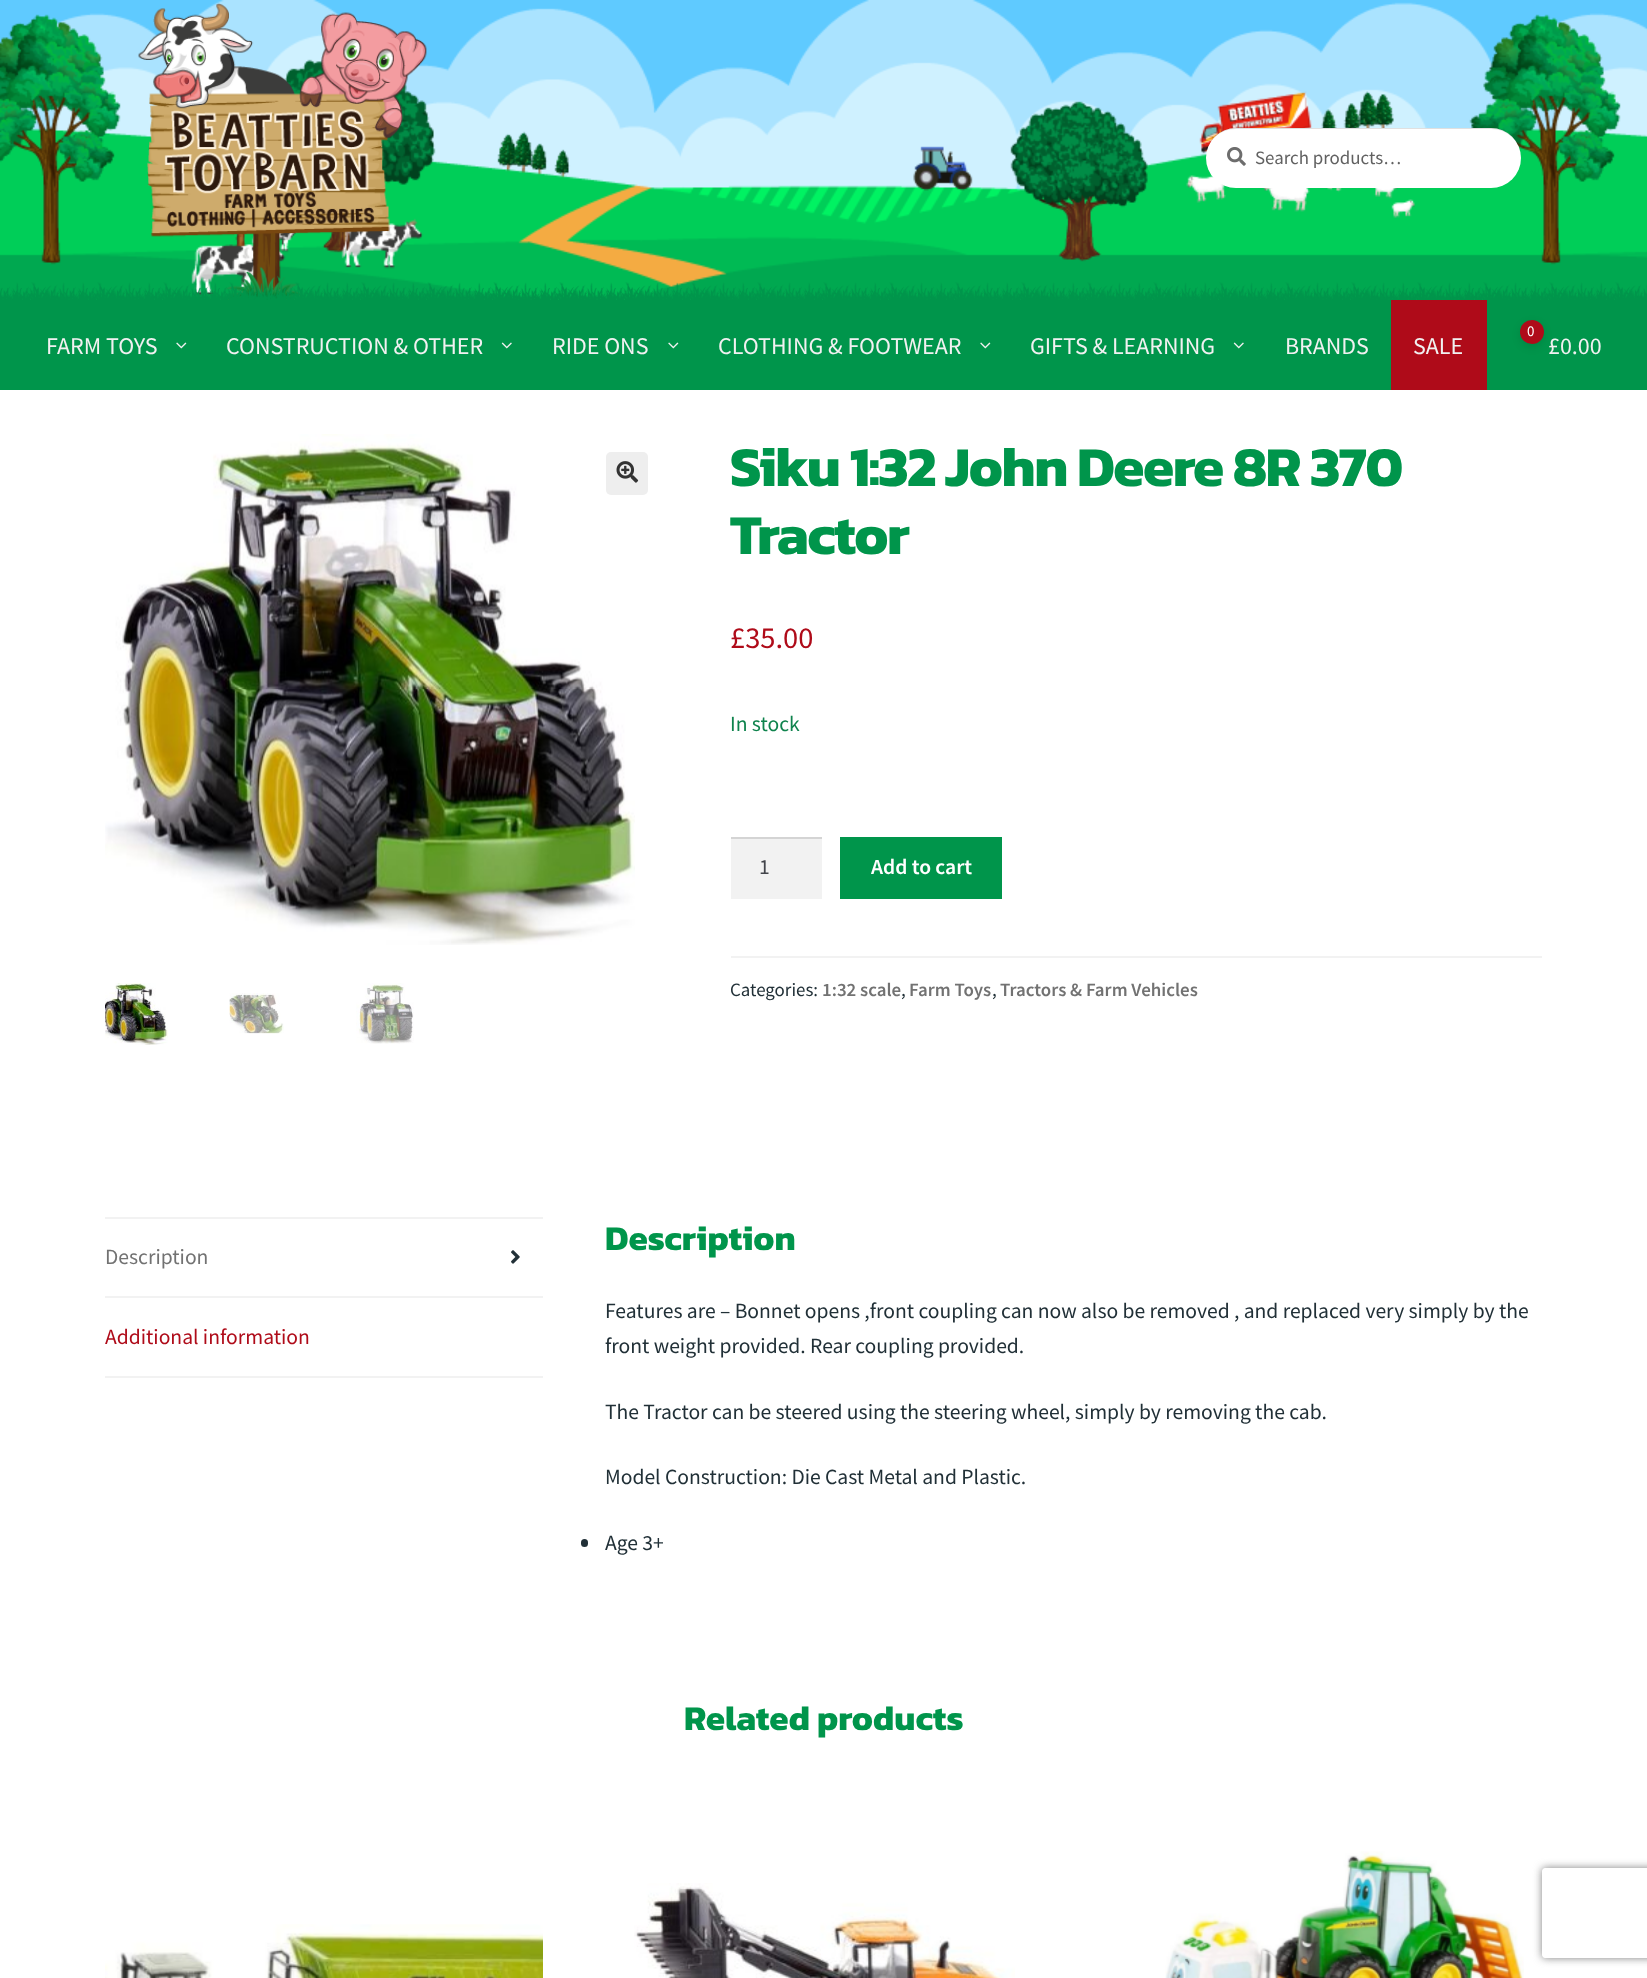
<svg xmlns="http://www.w3.org/2000/svg" width="1647" height="1978">
<defs>
<clipPath id="clip1"><path d="M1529 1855h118v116h-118zm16 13h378c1.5 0 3 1.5 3 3v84c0 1.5-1.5 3-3 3h-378c-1.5 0-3-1.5-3-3v-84c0-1.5 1.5-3 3-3z" clip-rule="evenodd"/></clipPath>
</defs>
<rect width="100%" height="100%" fill="#fff"/>
<image x="0" y="0" width="1647" height="300" href="media/1.png"/>
<image x="138" y="3" width="289" height="297" href="media/2.png"/>
<rect x="1206" y="128" width="315" height="60" rx="30" fill="#fff"/>
<path d="M1236 129h255c17 0 30 13 30 29c0-17-13-30-30-30h-255c-17 0-30 13-30 30c0-16 13-29 30-29z" fill="#0000001f"/>
<image x="1227" y="147" width="19" height="19" href="media/3.png"/>
<text x="1255" y="164" style="font-family:Source Sans Pro;font-size:18.9px;fill:#616161">Search products…</text>
<image x="0" y="282" width="1647" height="18" href="media/4.png"/>
<rect y="300" width="1647" height="90" fill="#00954b"/>
<text x="46" y="354" style="font-family:Source Sans Pro;font-size:24px;fill:#f1f1f1">FARM TOYS</text>
<image x="176" y="342" width="11" height="7" href="media/5.png"/>
<text x="226" y="354" style="font-family:Source Sans Pro;font-size:24px;fill:#f1f1f1">CONSTRUCTION &amp; OTHER</text>
<image x="501" y="342" width="11" height="7" href="media/6.png"/>
<text x="552" y="354" style="font-family:Source Sans Pro;font-size:24px;fill:#f1f1f1">RIDE ONS</text>
<image x="668" y="342" width="11" height="7" href="media/5.png"/>
<text x="718" y="354" style="font-family:Source Sans Pro;font-size:24px;fill:#f1f1f1">CLOTHING &amp; FOOTWEAR</text>
<image x="980" y="342" width="11" height="7" href="media/5.png"/>
<text x="1030" y="354" style="font-family:Source Sans Pro;font-size:24px;fill:#f1f1f1">GIFTS &amp; LEARNING</text>
<image x="1233" y="342" width="11" height="7" href="media/6.png"/>
<text x="1285" y="354" style="font-family:Source Sans Pro;font-size:24px;fill:#f1f1f1">BRANDS</text>
<rect x="1391" y="300" width="96" height="90" fill="#af0b19"/>
<text x="1413" y="354" style="font-family:Source Sans Pro;font-size:24px;fill:#f1f1f1">SALE</text>
<rect x="1520" y="323" width="24" height="24" rx="12" fill="#0000001a" filter="blur(4px)"/>
<circle cx="1532" cy="332" r="12" fill="#af0b19"/>
<text x="1527" y="336" style="font-family:Source Sans Pro;font-size:15px;fill:#fff">0</text>
<text x="1548" y="354" style="font-family:Source Sans Pro;font-size:24px;fill:#f1f1f1">£0.00</text>
<image x="105" y="434" width="530" height="511" href="media/7.png"/>
<rect x="606" y="452" width="42" height="43" rx="5" fill="#eee"/>
<image x="616" y="461" width="23" height="22" href="media/8.png"/>
<image x="105" y="983" width="63" height="62" href="media/9.png"/>
<image x="229" y="993" width="55" height="41" href="media/10.png"/>
<image x="356" y="983" width="58" height="61" href="media/11.png"/>
<text x="730" y="486" style="font-family:Kanit;font-size:56.5px;font-weight:bold;letter-spacing:-1.5px;fill:#00954b">Siku 1:32 John Deere 8R 370</text>
<text x="730" y="554" style="font-family:Kanit;font-size:56.5px;font-weight:bold;letter-spacing:-1.5px;fill:#00954b">Tractor</text>
<text x="730" y="648" style="font-family:Source Sans Pro;font-size:30.5px;fill:#af0b19">£35.00</text>
<text x="730" y="731" style="font-family:Source Sans Pro;font-size:21.6px;fill:#0f834d">In stock</text>
<rect x="731" y="839" width="91" height="60" fill="#f2f2f2"/>
<rect x="731" y="837" width="91" height="2" fill="#d4d4d4"/>
<text x="759" y="874" style="font-family:Source Sans Pro;font-size:21.6px;fill:#43454b">1</text>
<rect x="840" y="837" width="162" height="62" fill="#00954b"/>
<text x="871" y="874" style="font-family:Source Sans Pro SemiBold;font-size:21.6px;font-weight:600;fill:#fff">Add to cart</text>
<rect x="731" y="956" width="811" height="2" fill="#f2f2f2"/>
<text x="730" y="996" style="font-family:Source Sans Pro;font-size:18.9px;fill:#213037">Categories:</text>
<text x="822" y="996" style="font-family:Source Sans Pro SemiBold;font-size:18.9px;font-weight:600;fill:#727272">1:32 scale</text>
<text x="901" y="996" style="font-family:Source Sans Pro;font-size:18.9px;fill:#213037">,</text>
<text x="909" y="996" style="font-family:Source Sans Pro SemiBold;font-size:18.9px;font-weight:600;fill:#727272">Farm Toys</text>
<text x="992" y="996" style="font-family:Source Sans Pro;font-size:18.9px;fill:#213037">,</text>
<text x="1000" y="996" style="font-family:Source Sans Pro SemiBold;font-size:18.9px;font-weight:600;fill:#727272">Tractors &amp; Farm Vehicles</text>
<rect x="105" y="1217" width="438" height="2" fill="#f2f2f2"/>
<rect x="105" y="1296" width="438" height="2" fill="#f2f2f2"/>
<text x="105" y="1264" style="font-family:Source Sans Pro;font-size:21.6px;fill:#727272">Description</text>
<image x="511" y="1250" width="9" height="14" href="media/12.png"/>
<rect x="105" y="1376" width="438" height="2" fill="#f2f2f2"/>
<text x="105" y="1344" style="font-family:Source Sans Pro;font-size:21.6px;fill:#af0b19">Additional information</text>
<text x="605" y="1250" style="font-family:Kanit;font-size:35px;font-weight:bold;fill:#00954b">Description</text>
<text x="605" y="1318" style="font-family:Source Sans Pro;font-size:21.6px;fill:#213037">Features are – Bonnet opens ,front coupling can now also be removed , and replaced very simply by the</text>
<text x="605" y="1353" style="font-family:Source Sans Pro;font-size:21.6px;fill:#213037">front weight provided. Rear coupling provided.</text>
<text x="605" y="1419" style="font-family:Source Sans Pro;font-size:21.6px;fill:#213037">The Tractor can be steered using the steering wheel, simply by removing the cab.</text>
<text x="605" y="1484" style="font-family:Source Sans Pro;font-size:21.6px;fill:#213037">Model Construction: Die Cast Metal and Plastic.</text>
<rect x="581" y="1539" width="7" height="8" rx="3.5" fill="#213037"/>
<text x="605" y="1550" style="font-family:Source Sans Pro;font-size:21.6px;fill:#213037">Age 3+</text>
<text x="684" y="1730" style="font-family:Kanit;font-size:35px;font-weight:bold;fill:#00954b">Related products</text>
<image x="105" y="1924" width="438" height="54" href="media/13.png"/>
<image x="634" y="1883" width="381" height="95" href="media/14.png"/>
<image x="1165" y="1851" width="359" height="127" href="media/15.png"/>
<g clip-path="url(#clip1)">
<rect x="1542" y="1868" width="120" height="90" rx="3" fill="#808080" filter="blur(4px)"/>
</g>
</svg>
